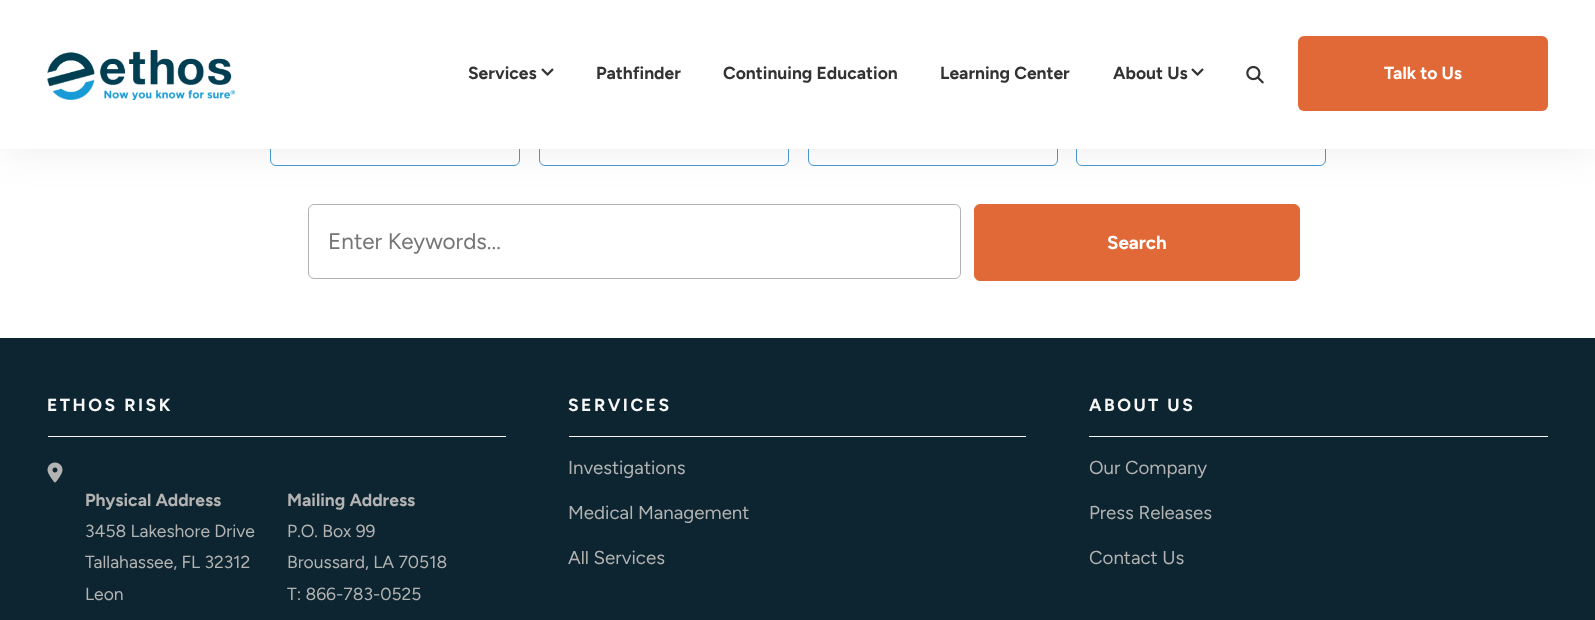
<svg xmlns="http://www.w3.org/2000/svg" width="1595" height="620">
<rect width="100%" height="100%" fill="#fff"/>
<rect x="270.5" y="89.5" width="249" height="76" rx="5.5" fill="none" stroke="#4799d1"/>
<rect x="539.5" y="89.5" width="249" height="76" rx="5.5" fill="none" stroke="#4799d1"/>
<rect x="808.5" y="89.5" width="249" height="76" rx="5.5" fill="none" stroke="#4799d1"/>
<rect x="1076.5" y="89.5" width="249" height="76" rx="5.5" fill="none" stroke="#4799d1"/>
<rect x="308.5" y="204.5" width="652" height="74" rx="5.5" fill="none" stroke="#b3b3b3"/>
<rect x="974.5" y="204.5" width="325" height="76" rx="5.5" fill="#e16937" stroke="#e16937"/>
<rect width="1595" height="149" fill="#4242421a" filter="blur(19px)"/>
<rect width="1595" height="149" fill="#fff"/>
<image x="47" y="50" width="189" height="50" href="media/1.png"/>
<text x="468" y="79" style="font-family:'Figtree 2';font-size:17.5px;font-weight:300;fill:#333">Services</text>
<image x="541" y="68" width="13" height="8" href="media/2.png"/>
<text x="596" y="79" style="font-family:'Figtree 2';font-size:17.5px;font-weight:300;fill:#333">Pathfinder</text>
<text x="723" y="79" style="font-family:'Figtree 2';font-size:17.5px;font-weight:300;fill:#333">Continuing Education</text>
<text x="940" y="79" style="font-family:'Figtree 2';font-size:17.5px;font-weight:300;fill:#333">Learning Center</text>
<text x="1113" y="79" style="font-family:'Figtree 2';font-size:17.5px;font-weight:300;fill:#333">About Us</text>
<image x="1191" y="68" width="13" height="8" href="media/2.png"/>
<image x="1246" y="65" width="18" height="19" href="media/3.png"/>
<rect x="1298" y="36" width="250" height="75" rx="6" fill="#e16937"/>
<text x="1384" y="79" style="font-family:'Figtree 2';font-size:17.5px;font-weight:300;fill:#fff">Talk to Us</text>
<text x="328" y="249" style="font-family:Figtree;font-size:22.5px;font-weight:300;fill:#757575">Enter Keywords...</text>
<text x="1107" y="249" style="font-family:'Figtree 2';font-size:18.75px;font-weight:300;fill:#fff">Search</text>
<rect y="338" width="1595" height="282" fill="#0d2530"/>
<rect x="48" y="436" width="458" height="1" fill="#f7f7f7"/>
<text x="47" y="411" style="font-family:'Figtree 2';font-size:17.5px;font-weight:300;letter-spacing:2.5px;fill:#f7f7f7">ETHOS RISK</text>
<image x="47" y="462" width="16" height="21" href="media/4.png"/>
<text x="85" y="506" style="font-family:'Figtree 2';font-size:17.5px;font-weight:300;fill:#b3b3b3">Physical Address</text>
<text x="85" y="537" style="font-family:Figtree;font-size:17.5px;font-weight:300;fill:#b3b3b3">3458 Lakeshore Drive</text>
<text x="85" y="568" style="font-family:Figtree;font-size:17.5px;font-weight:300;fill:#b3b3b3">Tallahassee, FL 32312</text>
<text x="85" y="600" style="font-family:Figtree;font-size:17.5px;font-weight:300;fill:#b3b3b3">Leon</text>
<text x="287" y="506" style="font-family:'Figtree 2';font-size:17.5px;font-weight:300;fill:#b3b3b3">Mailing Address</text>
<text x="287" y="537" style="font-family:Figtree;font-size:17.5px;font-weight:300;fill:#b3b3b3">P.O. Box 99</text>
<text x="287" y="568" style="font-family:Figtree;font-size:17.5px;font-weight:300;fill:#b3b3b3">Broussard, LA 70518</text>
<text x="287" y="600" style="font-family:Figtree;font-size:17.5px;font-weight:300;fill:#b3b3b3">T: 866-783-0525</text>
<rect x="569" y="436" width="457" height="1" fill="#f7f7f7"/>
<text x="568" y="411" style="font-family:'Figtree 2';font-size:17.5px;font-weight:300;letter-spacing:2.5px;fill:#f7f7f7">SERVICES</text>
<text x="568" y="474" style="font-family:Figtree;font-size:18.75px;font-weight:300;fill:#b3b3b3">Investigations</text>
<text x="568" y="519" style="font-family:Figtree;font-size:18.75px;font-weight:300;fill:#b3b3b3">Medical Management</text>
<text x="568" y="564" style="font-family:Figtree;font-size:18.75px;font-weight:300;fill:#b3b3b3">All Services</text>
<rect x="1089" y="436" width="459" height="1" fill="#f7f7f7"/>
<text x="1089" y="411" style="font-family:'Figtree 2';font-size:17.5px;font-weight:300;letter-spacing:2.5px;fill:#f7f7f7">ABOUT US</text>
<text x="1089" y="474" style="font-family:Figtree;font-size:18.75px;font-weight:300;fill:#b3b3b3">Our Company</text>
<text x="1089" y="519" style="font-family:Figtree;font-size:18.75px;font-weight:300;fill:#b3b3b3">Press Releases</text>
<text x="1089" y="564" style="font-family:Figtree;font-size:18.75px;font-weight:300;fill:#b3b3b3">Contact Us</text>
</svg>
